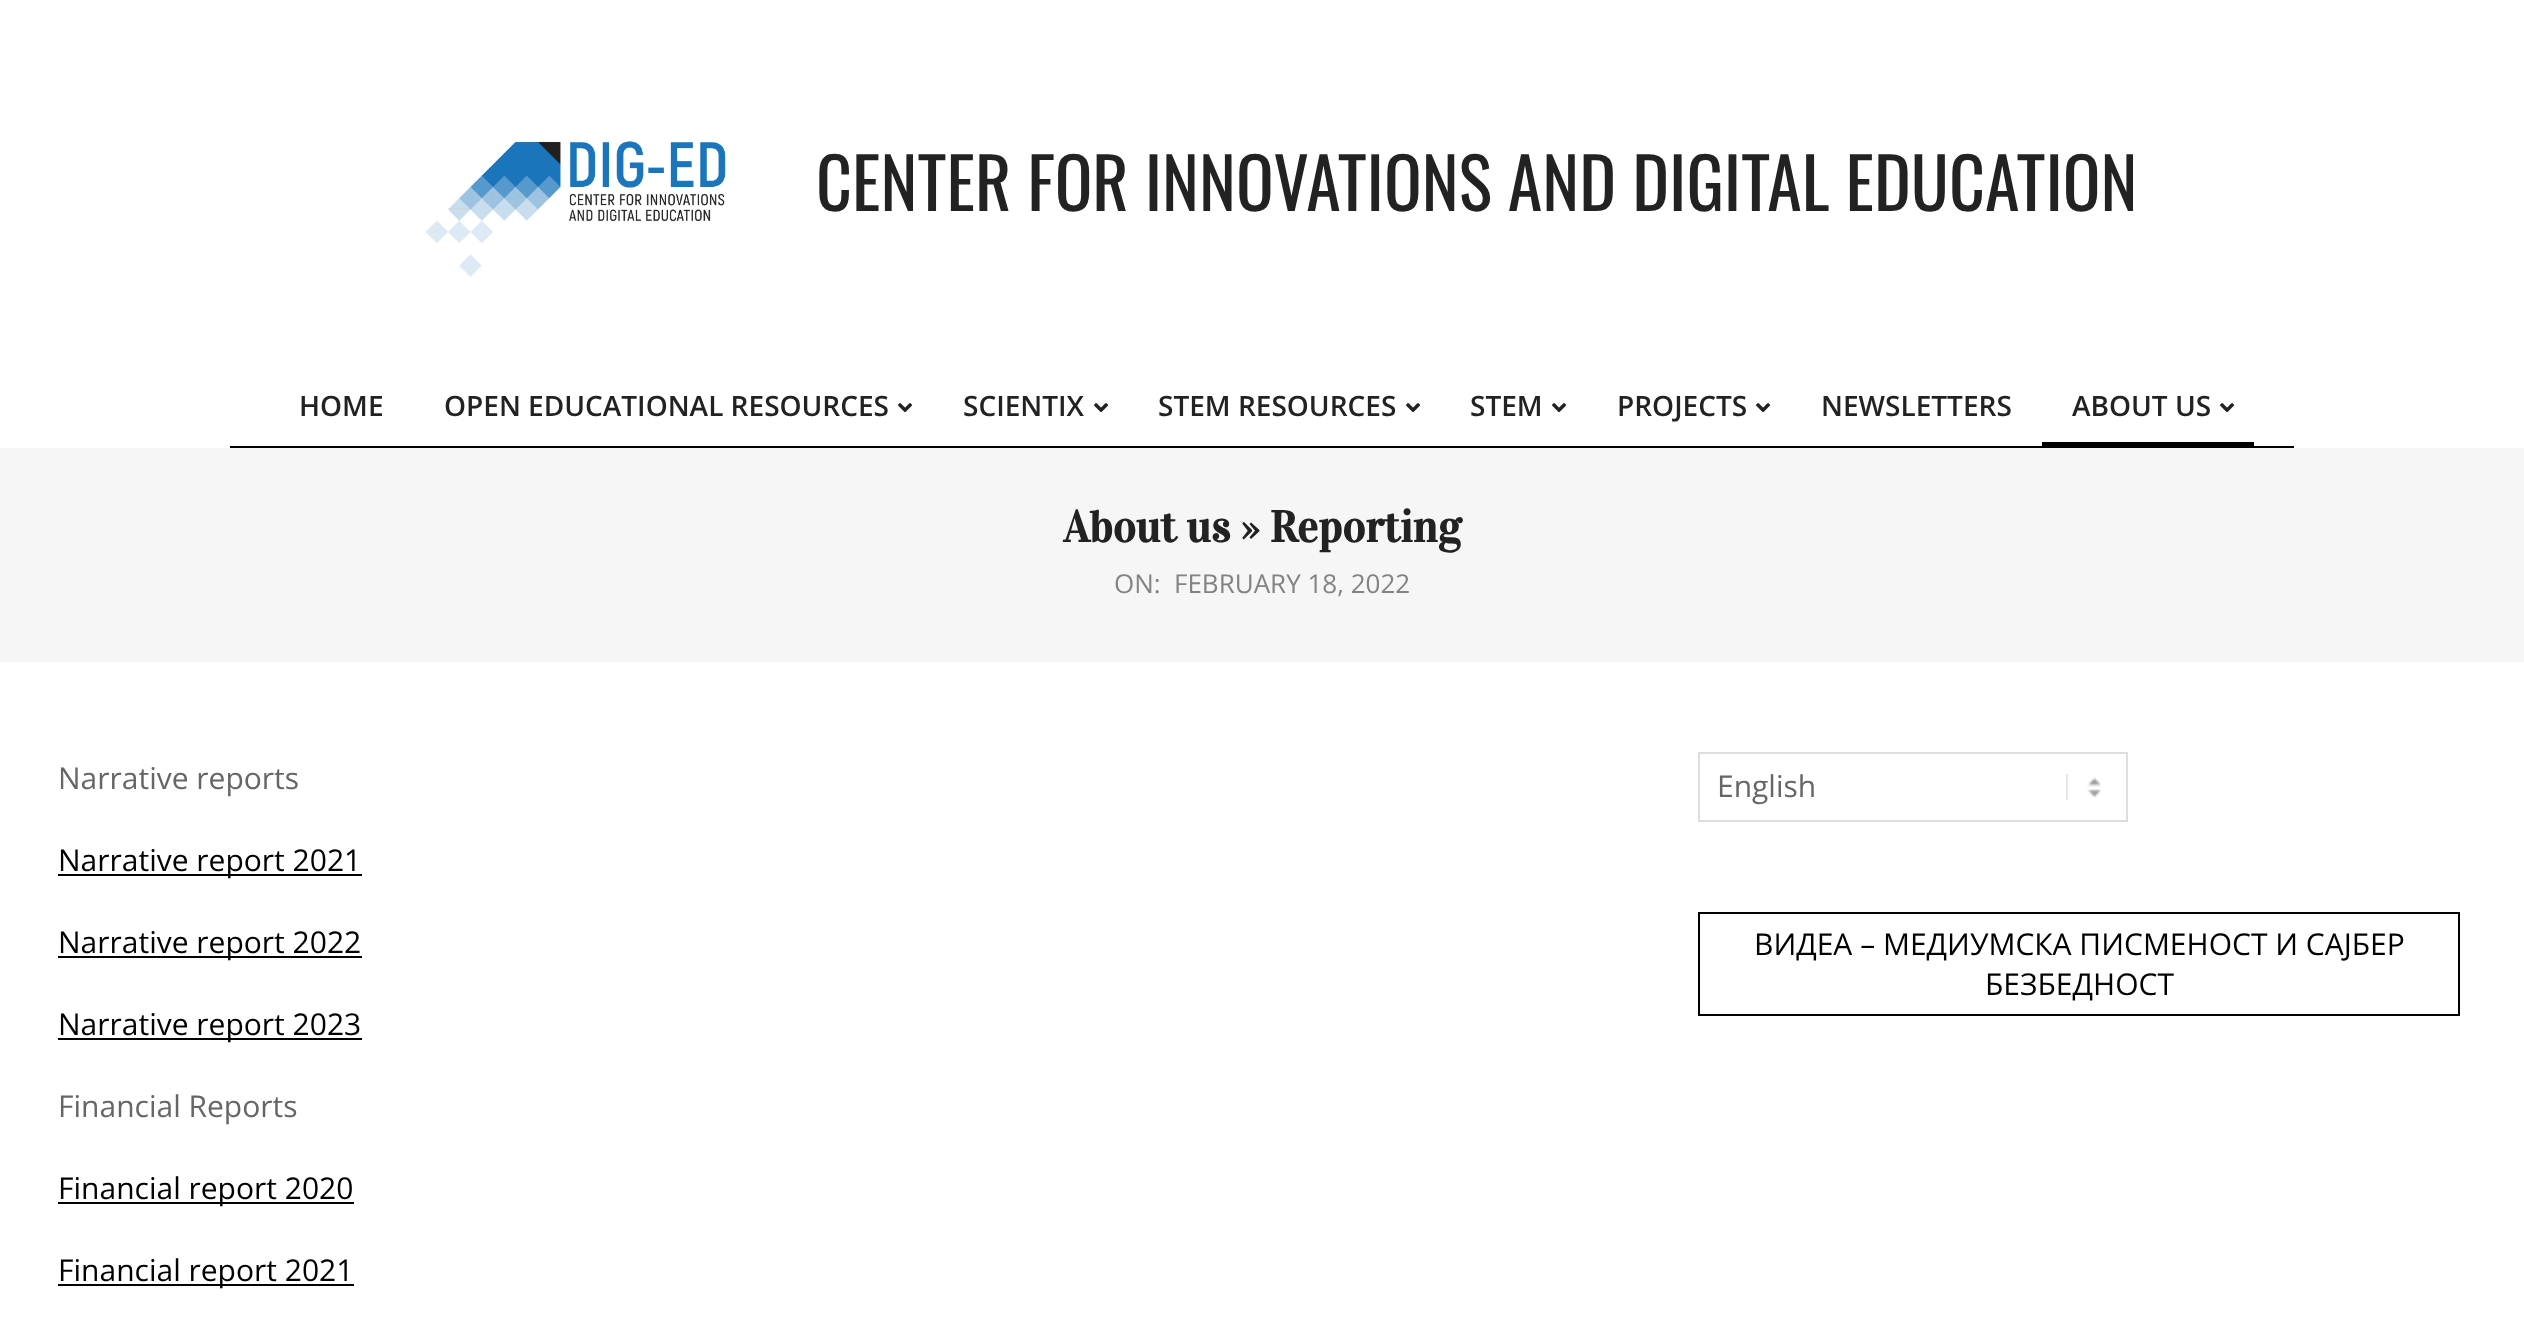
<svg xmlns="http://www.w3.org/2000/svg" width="2524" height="1327">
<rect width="100%" height="100%" fill="#fff"/>
<image x="425" y="141" width="301" height="136" href="media/1.png"/>
<text x="816" y="211" style="font-family:Oswald;font-size:70px;fill:#222">CENTER FOR INNOVATIONS AND DIGITAL EDUCATION</text>
<rect x="230" y="446" width="2064" height="2" fill="#000"/>
<text x="299" y="416" style="font-family:Open Sans;font-size:28px;font-weight:600;fill:#222">HOME</text>
<text x="444" y="416" style="font-family:Open Sans;font-size:28px;font-weight:600;fill:#222">OPEN EDUCATIONAL RESOURCES</text>
<image x="898" y="403" width="14" height="10" href="media/2.png"/>
<text x="963" y="416" style="font-family:Open Sans;font-size:28px;font-weight:600;fill:#222">SCIENTIX</text>
<image x="1094" y="403" width="14" height="10" href="media/2.png"/>
<text x="1158" y="416" style="font-family:Open Sans;font-size:28px;font-weight:600;fill:#222">STEM RESOURCES</text>
<image x="1406" y="403" width="14" height="10" href="media/2.png"/>
<text x="1470" y="416" style="font-family:Open Sans;font-size:28px;font-weight:600;fill:#222">STEM</text>
<image x="1552" y="403" width="14" height="10" href="media/2.png"/>
<text x="1617" y="416" style="font-family:Open Sans;font-size:28px;font-weight:600;fill:#222">PROJECTS</text>
<image x="1756" y="403" width="14" height="10" href="media/2.png"/>
<text x="1821" y="416" style="font-family:Open Sans;font-size:28px;font-weight:600;fill:#222">NEWSLETTERS</text>
<text x="2072" y="416" style="font-family:Open Sans;font-size:28px;font-weight:600;fill:#222">ABOUT US</text>
<image x="2220" y="403" width="14" height="10" href="media/2.png"/>
<rect x="2042" y="442" width="212" height="4" fill="#000"/>
<rect y="448" width="2524" height="214" fill="#f6f6f6"/>
<text x="1063" y="542" style="font-family:Vidaloka;font-size:44px;font-weight:bold;fill:#222">About us » Reporting</text>
<text x="1114" y="593" style="font-family:Open Sans;font-size:26px;fill:#838383">ON:</text>
<text x="1174" y="593" style="font-family:Open Sans;font-size:26px;fill:#838383">FEBRUARY 18, 2022</text>
<text x="58" y="789" style="font-family:Open Sans;font-size:30px;fill:#666">Narrative reports</text>
<rect x="58" y="874" width="304" height="2" fill="#000"/>
<text x="58" y="871" style="font-family:Open Sans;font-size:30px;fill:#000">Narrative report 2021</text>
<rect x="58" y="956" width="304" height="2" fill="#000"/>
<text x="58" y="953" style="font-family:Open Sans;font-size:30px;fill:#000">Narrative report 2022</text>
<rect x="58" y="1038" width="304" height="2" fill="#000"/>
<text x="58" y="1035" style="font-family:Open Sans;font-size:30px;fill:#000">Narrative report 2023</text>
<text x="58" y="1117" style="font-family:Open Sans;font-size:30px;fill:#666">Financial Reports</text>
<rect x="58" y="1202" width="296" height="2" fill="#000"/>
<text x="58" y="1199" style="font-family:Open Sans;font-size:30px;fill:#000">Financial report 2020</text>
<rect x="58" y="1284" width="296" height="2" fill="#000"/>
<text x="58" y="1281" style="font-family:Open Sans;font-size:30px;fill:#000">Financial report 2021</text>
<image x="2066" y="774" width="35" height="26" href="media/3.png"/>
<rect x="1699" y="753" width="428" height="68" fill="none" stroke="#ddd" stroke-width="2"/>
<text x="1717" y="797" style="font-family:Open Sans;font-size:30px;fill:#666">English</text>
<rect x="1699" y="913" width="760" height="102" fill="none" stroke="#000" stroke-width="2"/>
<text x="1754" y="955" style="font-family:Open Sans;font-size:30px;fill:#000">ВИДЕА – МЕДИУМСКА ПИСМЕНОСТ И САЈБЕР</text>
<text x="1985" y="995" style="font-family:Open Sans;font-size:30px;fill:#000">БЕЗБЕДНОСТ</text>
</svg>
